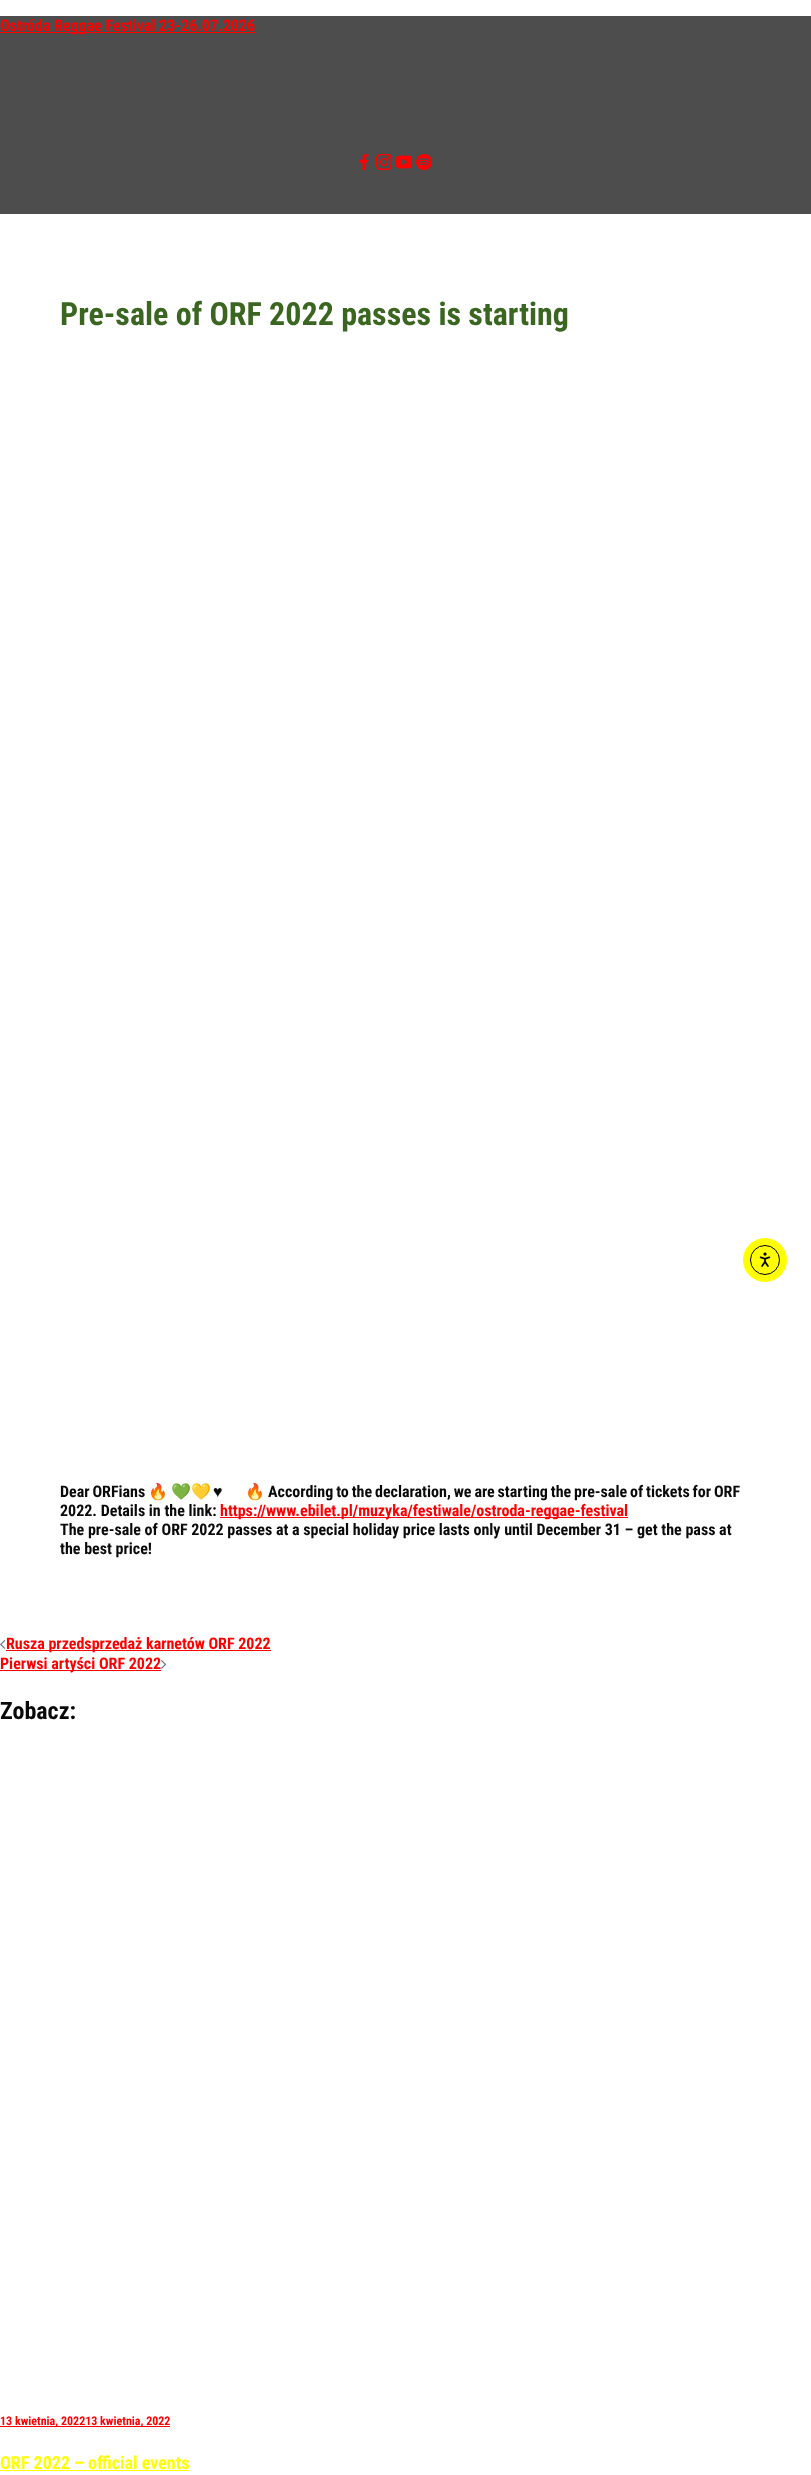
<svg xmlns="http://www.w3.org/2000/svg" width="811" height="2475">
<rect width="100%" height="100%" fill="#fff"/>
<rect y="16" width="811" height="198" fill="#4d4d4d"/>
<rect y="32" width="255" height="1" fill="#f00"/>
<text x="0" y="31" style="font-family:Roboto Condensed;font-size:16px;font-weight:bold;fill:#f00">Ostróda Reggae Festival 23-26.07.2026</text>
<image x="360" y="154" width="9" height="16" href="media/1.png"/>
<image x="376" y="154" width="16" height="16" href="media/2.png"/>
<image x="396" y="155" width="16" height="14" href="media/3.png"/>
<image x="416" y="154" width="16" height="16" href="media/4.png"/>
<text x="60" y="325" style="font-family:Roboto Condensed;font-size:32px;font-weight:bold;fill:#3b6621">Pre-sale of ORF 2022 passes is starting</text>
<text x="60" y="1497" word-spacing="-0.8" style="font-family:Roboto Condensed;font-size:16px;font-weight:bold;fill:#0a0a0a">Dear ORFians</text>
<text x="148" y="1497" style="font-family:Noto Color Emoji;font-size:16px;fill:#0a0a0a">🔥</text>
<text x="171" y="1497" style="font-family:Noto Color Emoji;font-size:16px;fill:#0a0a0a">💚💛</text>
<text x="213" y="1497" style="font-family:Liberation Sans;font-size:16px;fill:#0a0a0a">♥</text>
<text x="245" y="1497" style="font-family:Noto Color Emoji;font-size:16px;fill:#0a0a0a">🔥</text>
<text x="268" y="1497" word-spacing="-0.8" style="font-family:Roboto Condensed;font-size:16px;font-weight:bold;fill:#0a0a0a">According to the declaration, we are starting the pre-sale of tickets for ORF</text>
<text x="60" y="1516" style="font-family:Roboto Condensed;font-size:16px;font-weight:bold;fill:#0a0a0a">2022. Details in the link:</text>
<rect x="220" y="1517" width="408" height="1" fill="#f00"/>
<text x="220" y="1516" style="font-family:Roboto Condensed;font-size:16px;font-weight:bold;fill:#f00">https://www.ebilet.pl/muzyka/festiwale/ostroda-reggae-festival</text>
<text x="60" y="1535" style="font-family:Roboto Condensed;font-size:16px;font-weight:bold;fill:#0a0a0a">The pre-sale of ORF 2022 passes at a special holiday price lasts only until December 31 – get the pass at</text>
<text x="60" y="1554" style="font-family:Roboto Condensed;font-size:16px;font-weight:bold;fill:#0a0a0a">the best price!</text>
<image x="0" y="1640" width="6" height="9" href="media/5.png"/>
<rect x="6" y="1650" width="265" height="1" fill="#f00"/>
<text x="6" y="1649" style="font-family:Roboto Condensed;font-size:16px;font-weight:bold;fill:#f00">Rusza przedsprzedaż karnetów ORF 2022</text>
<rect y="1670" width="161" height="1" fill="#f00"/>
<text x="0" y="1669" style="font-family:Roboto Condensed;font-size:16px;font-weight:bold;fill:#f00">Pierwsi artyści ORF 2022</text>
<image x="161" y="1660" width="6" height="9" href="media/6.png"/>
<text x="0" y="1719" style="font-family:Roboto Condensed;font-size:24px;font-weight:bold;fill:#0a0a0a">Zobacz:</text>
<rect y="2426" width="170" height="1" fill="#f00"/>
<text x="0" y="2425" style="font-family:Roboto Condensed;font-size:12px;font-weight:bold;fill:#f00">13 kwietnia, 202213 kwietnia, 2022</text>
<text x="0" y="2469" style="font-family:Roboto Condensed;font-size:18px;font-weight:bold;fill:#ff0">ORF 2022 – official events</text>
<rect y="2470" width="189" height="1" fill="#ff0"/>
<circle cx="765" cy="1260" r="22" fill="#ff0"/>
<circle cx="765" cy="1260" r="14.5" fill="none" stroke="#000"/>
<image x="759" y="1252" width="12" height="15" href="media/7.png"/>
</svg>
